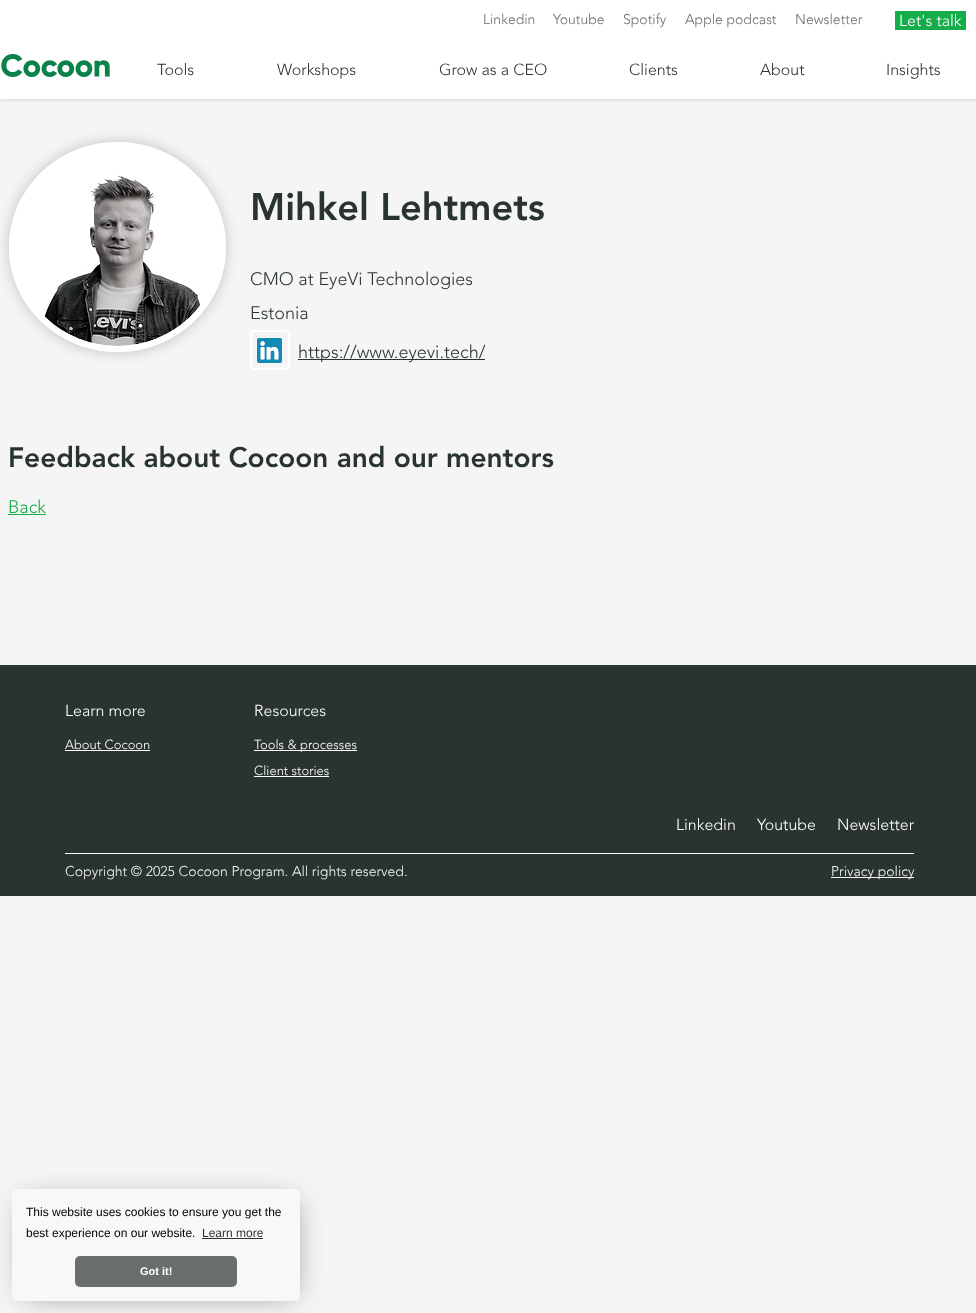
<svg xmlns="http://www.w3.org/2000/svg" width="976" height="1313">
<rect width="100%" height="100%" fill="#f4f5f4"/>
<rect width="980" height="99" fill="#0000002e" filter="blur(2.5px)"/>
<rect width="976" height="99" fill="#fff"/>
<text x="483" y="24" style="font-family:'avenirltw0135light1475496';font-size:14px;font-weight:300;fill:#69706c">Linkedin</text>
<text x="553" y="24" style="font-family:'avenirltw0135light1475496';font-size:14px;font-weight:300;fill:#69706c">Youtube</text>
<text x="623" y="24" style="font-family:'avenirltw0135light1475496';font-size:14px;font-weight:300;fill:#69706c">Spotify</text>
<text x="685" y="24" style="font-family:'avenirltw0135light1475496';font-size:14px;font-weight:300;fill:#69706c">Apple podcast</text>
<text x="795" y="24" style="font-family:'avenirltw0135light1475496';font-size:14px;font-weight:300;fill:#69706c">Newsletter</text>
<rect x="895" y="11" width="71" height="19" fill="#14ad4a"/>
<text x="899" y="26" style="font-family:'avenirltw0135light1475496';font-size:16px;font-weight:300;fill:#fff">Let's talk</text>
<image x="1" y="54" width="109" height="23" href="media/1.png"/>
<text x="157" y="75" style="font-family:'avenirltw0135light1475496';font-size:16px;font-weight:300;fill:#2a342e">Tools</text>
<text x="277" y="75" style="font-family:'avenirltw0135light1475496';font-size:16px;font-weight:300;fill:#2a342e">Workshops</text>
<text x="439" y="75" style="font-family:'avenirltw0135light1475496';font-size:16px;font-weight:300;fill:#2a342e">Grow as a CEO</text>
<text x="629" y="75" style="font-family:'avenirltw0135light1475496';font-size:16px;font-weight:300;fill:#2a342e">Clients</text>
<text x="760" y="75" style="font-family:'avenirltw0135light1475496';font-size:16px;font-weight:300;fill:#2a342e">About</text>
<text x="886" y="75" style="font-family:'avenirltw0135light1475496';font-size:16px;font-weight:300;fill:#2a342e">Insights</text>
<rect x="9" y="142" width="217" height="210" rx="105" fill="#00000033" filter="blur(7px)"/>
<ellipse cx="117.5" cy="247" rx="108.5" ry="105" fill="#fff"/>
<path d="M117.5 145c58.5 0 105.5 45.5 105.5 102c0 56.5-47 102-105.5 102c-58.5 0-105.5-45.5-105.5-102c0-56.5 47-102 105.5-102z" fill="none" stroke="#fff" stroke-width="6"/>
<image x="44" y="175" width="156" height="171" href="media/2.png"/>
<text x="250" y="220" style="font-family:'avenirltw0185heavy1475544';font-size:38px;font-weight:900;fill:#2a342e">Mihkel Lehtmets</text>
<text x="250" y="285" style="font-family:'avenirltw0135light1475496';font-size:18px;font-weight:300;fill:#2a342e">CMO at EyeVi Technologies</text>
<text x="250" y="319" style="font-family:'avenirltw0135light1475496';font-size:18px;font-weight:300;fill:#2a342e">Estonia</text>
<image x="257" y="338" width="25" height="25" href="media/3.png"/>
<rect x="251" y="331" width="38" height="38" rx="3" fill="none" stroke="#fff" stroke-width="2"/>
<rect x="298" y="359" width="187" height="1" fill="#2a342e"/>
<text x="298" y="358" style="font-family:'avenirltw0135light1475496';font-size:18px;font-weight:300;fill:#2a342e">https://www.eyevi.tech/</text>
<text x="8" y="467" style="font-family:'avenirltw0185heavy1475544';font-size:28px;font-weight:900;fill:#2a342e">Feedback about Cocoon and our mentors</text>
<text x="8" y="513" style="font-family:'avenirltw0135light1475496';font-size:18px;font-weight:300;fill:#14ad4a">Back</text>
<rect x="8" y="514" width="38" height="1" fill="#14ad4a"/>
<rect y="665" width="976" height="231" fill="#2a342f"/>
<text x="65" y="716" style="font-family:'avenirltw0135light1475496';font-size:16px;font-weight:300;fill:#fff">Learn more</text>
<text x="254" y="716" style="font-family:'avenirltw0135light1475496';font-size:16px;font-weight:300;fill:#fff">Resources</text>
<text x="65" y="749" style="font-family:'avenirltw0135light1475496';font-size:13px;font-weight:300;fill:#fff">About Cocoon</text>
<rect x="65" y="750" width="85" height="1" fill="#fff"/>
<rect x="254" y="750" width="103" height="1" fill="#fff"/>
<text x="254" y="749" style="font-family:'avenirltw0135light1475496';font-size:13px;font-weight:300;fill:#fff">Tools &amp; processes</text>
<text x="254" y="775" style="font-family:'avenirltw0135light1475496';font-size:13px;font-weight:300;fill:#fff">Client stories</text>
<rect x="254" y="776" width="75" height="1" fill="#fff"/>
<text x="676" y="830" style="font-family:'avenirltw0135light1475496';font-size:16px;font-weight:300;fill:#fff">Linkedin</text>
<text x="757" y="830" style="font-family:'avenirltw0135light1475496';font-size:16px;font-weight:300;fill:#fff">Youtube</text>
<text x="837" y="830" style="font-family:'avenirltw0135light1475496';font-size:16px;font-weight:300;fill:#fff">Newsletter</text>
<rect x="65" y="853" width="849" height="1" fill="#fff"/>
<text x="65" y="876" style="font-family:'avenirltw0135light1475496';font-size:14px;font-weight:300;fill:#f4f5f4">Copyright © 2025 Cocoon Program. All rights reserved.</text>
<rect x="831" y="877" width="83" height="1" fill="#f4f5f4"/>
<text x="831" y="876" style="font-family:'avenirltw0135light1475496';font-size:14px;font-weight:300;fill:#f4f5f4">Privacy policy</text>
<rect x="25" y="1202" width="268" height="92" fill="#828282" filter="blur(14.5px)"/>
<rect x="12" y="1189" width="288" height="112" rx="5" fill="#f8f8f8"/>
<text x="26" y="1216" style="font-family:Liberation Sans;font-size:12px;fill:#000">This website uses cookies to ensure you get the</text>
<text x="26" y="1237" style="font-family:Liberation Sans;font-size:12px;fill:#000">best experience on our website.</text>
<text x="202" y="1237" style="font-family:Liberation Sans;font-size:12px;fill:#323232">Learn more</text>
<rect x="202" y="1238" width="61" height="1" fill="#323232"/>
<rect x="75" y="1256" width="162" height="31" rx="5" fill="#69706c"/>
<text x="140" y="1275" style="font-family:Liberation Sans;font-size:11px;font-weight:bold;fill:#fff">Got it!</text>
</svg>
